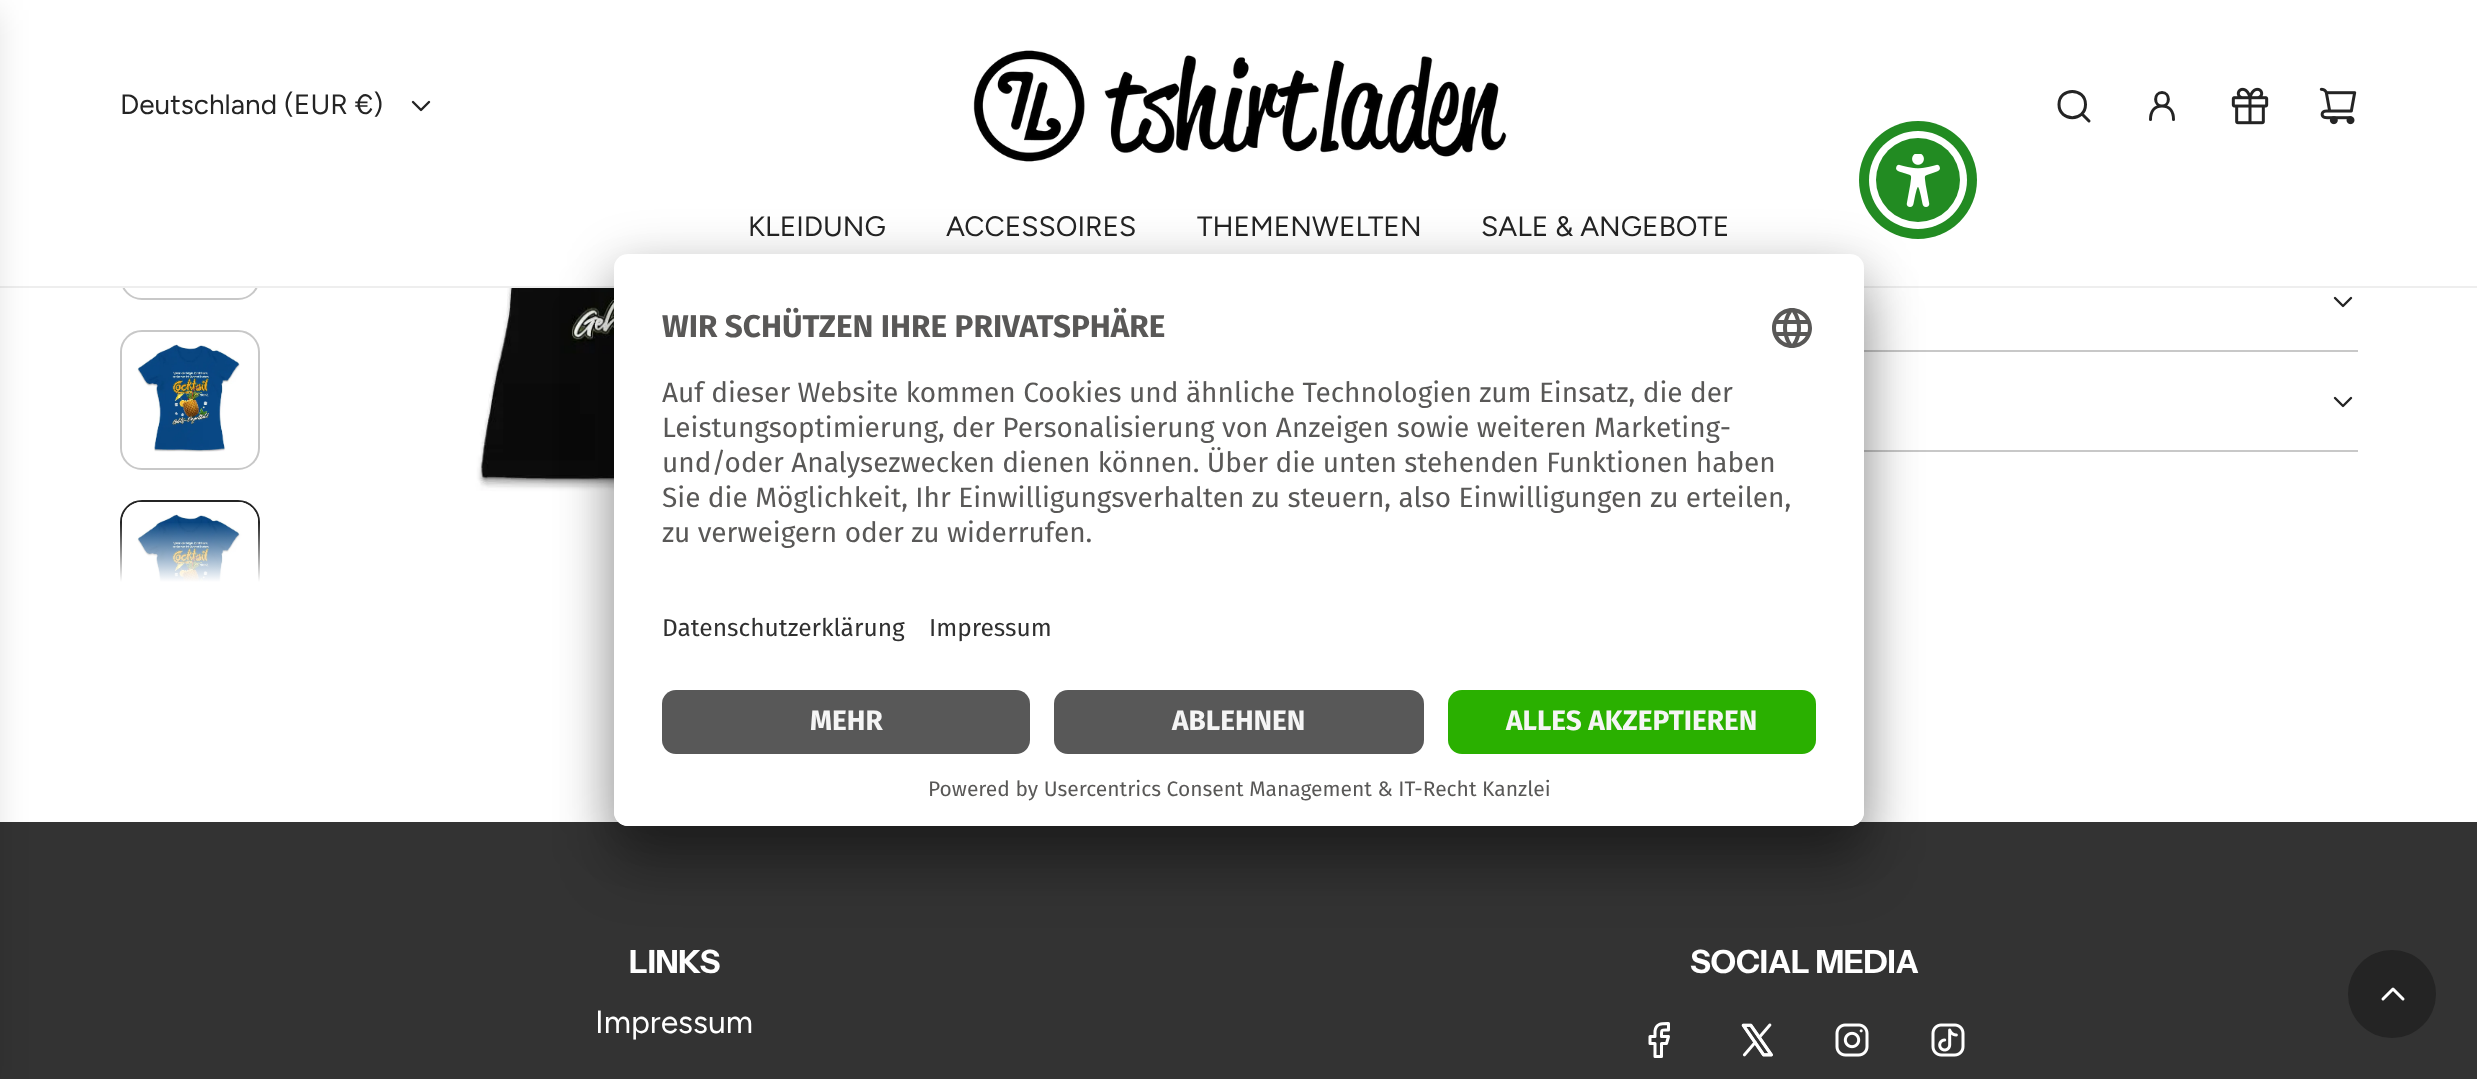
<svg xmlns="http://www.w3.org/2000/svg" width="2477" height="1079">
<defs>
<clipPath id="clip1"><rect x="120" width="140" height="582"/></clipPath>
<linearGradient id="g1" gradientUnits="userSpaceOnUse" x1="190" y1="522" x2="190" y2="582"><stop offset="0" stop-color="#fff" stop-opacity="0"/><stop offset="1" stop-color="#fff"/></linearGradient>
</defs>
<rect width="100%" height="100%" fill="#fff"/>
<rect x="121" y="161" width="138" height="138" rx="21" fill="none" stroke="#c8c8c8" stroke-width="2"/>
<rect x="120" y="160" width="140" height="126" fill="#fff"/>
<rect y="286" width="2477" height="2" fill="#eee"/>
<rect y="822" width="2477" height="257" fill="#333"/>
<rect x="-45" y="10" width="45" height="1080" fill="#0000001a" filter="blur(15px)"/>
<text x="120" y="114" style="font-family:Figtree;font-size:28px;fill:#242424">Deutschland (EUR €)</text>
<path d="M413 102l8 8l8-8" fill="none" stroke="#242424" stroke-width="2.4" stroke-linecap="round" stroke-linejoin="round"/>
<image x="973" y="50" width="534" height="112" href="media/1.png"/>
<path d="M2082.5 114.5l6.5 6.5m-30-16.5c0 17.5 26.5 17.5 26.5 0c0-17.5-26.5-17.5-26.5 0z" fill="none" stroke="#242424" stroke-width="3" stroke-linecap="round" stroke-linejoin="round"/>
<path d="M2150.5 119.5c0-7.5 3.5-13.5 11.5-13.5m0 0c8 0 11.5 6 11.5 13.5m-11.5-13.5c8.5 0 8.5-13.5 0-13.5c-8.5 0-8.5 13.5 0 13.5z" fill="none" stroke="#242424" stroke-width="3" stroke-linecap="round" stroke-linejoin="round"/>
<image x="2231" y="87" width="38" height="38" href="media/2.png"/>
<image x="2319" y="87" width="38" height="38" href="media/3.png"/>
<text x="748" y="236" style="font-family:Figtree;font-size:28px;fill:#242424">KLEIDUNG</text>
<text x="946" y="236" style="font-family:Figtree;font-size:28px;fill:#242424">ACCESSOIRES</text>
<text x="1197" y="236" style="font-family:Figtree;font-size:28px;fill:#242424">THEMENWELTEN</text>
<text x="1481" y="236" style="font-family:Figtree;font-size:28px;fill:#242424">SALE &amp; ANGEBOTE</text>
<rect x="121" y="331" width="138" height="138" rx="21" fill="none" stroke="#c8c8c8" stroke-width="2"/>
<image x="122" y="344" width="118" height="108" href="media/4.png"/>
<g clip-path="url(#clip1)">
<rect x="121" y="501" width="138" height="138" rx="21" fill="none" stroke="#242424" stroke-width="2"/>
</g>
<image x="122" y="502" width="136" height="80" href="media/5.png"/>
<g clip-path="url(#clip1)">
<rect x="124" y="504" width="132" height="132" rx="18" fill="none" stroke="#fff" stroke-width="4"/>
</g>
<rect x="120" y="523" width="140" height="59" fill="url(#g1)"/>
<image x="385" y="288" width="229" height="204" href="media/6.png"/>
<rect x="1864" y="350" width="494" height="2" fill="#c8c8c8"/>
<path d="M2335 298l8 8l8-8" fill="none" stroke="#242424" stroke-width="2.4" stroke-linecap="round" stroke-linejoin="round"/>
<rect x="1864" y="450" width="494" height="2" fill="#c8c8c8"/>
<path d="M2335 398l8 8l8-8" fill="none" stroke="#242424" stroke-width="2.4" stroke-linecap="round" stroke-linejoin="round"/>
<circle cx="1918" cy="180" r="59" fill="#228b22"/>
<circle cx="1918" cy="180" r="49" fill="#fff"/>
<circle cx="1918" cy="180" r="42" fill="#228b22"/>
<image x="1896" y="154" width="44" height="53" href="media/7.png"/>
<rect x="614" y="294" width="1250" height="572" rx="14" fill="#0000004d" filter="blur(28px)"/>
<rect x="614" y="264" width="1250" height="572" rx="14" fill="#00000038" filter="blur(26px)"/>
<rect x="614" y="254" width="1250" height="572" rx="14" fill="#fff"/>
<text x="662" y="337" style="font-family:Fira Sans;font-size:31.5px;font-weight:bold;fill:#595857">WIR SCHÜTZEN IHRE PRIVATSPHÄRE</text>
<image x="1772" y="308" width="40" height="40" href="media/8.png"/>
<text x="662" y="402" style="font-family:Fira Sans;font-size:28px;fill:#595857">Auf dieser Website kommen Cookies und ähnliche Technologien zum Einsatz, die der</text>
<text x="662" y="437" style="font-family:Fira Sans;font-size:28px;fill:#595857">Leistungsoptimierung, der Personalisierung von Anzeigen sowie weiteren Marketing-</text>
<text x="662" y="472" style="font-family:Fira Sans;font-size:28px;fill:#595857">und/oder Analysezwecken dienen können. Über die unten stehenden Funktionen haben</text>
<text x="662" y="507" style="font-family:Fira Sans;font-size:28px;fill:#595857">Sie die Möglichkeit, Ihr Einwilligungsverhalten zu steuern, also Einwilligungen zu erteilen,</text>
<text x="662" y="542" style="font-family:Fira Sans;font-size:28px;fill:#595857">zu verweigern oder zu widerrufen.</text>
<text x="662" y="636" style="font-family:Fira Sans;font-size:24.5px;fill:#303030">Datenschutzerklärung</text>
<text x="929" y="636" style="font-family:Fira Sans;font-size:24.5px;fill:#303030">Impressum</text>
<path d="M614 674h1250v138c0 7.5-6.5 14-14 14h-1222c-7.5 0-14-6.5-14-14z" fill="#fff"/>
<rect x="662" y="690" width="368" height="64" rx="14" fill="#585858"/>
<text x="810" y="730" style="font-family:Fira Sans;font-size:28px;font-weight:bold;fill:#f5f5f5">MEHR</text>
<rect x="1054" y="690" width="370" height="64" rx="14" fill="#585858"/>
<text x="1172" y="730" style="font-family:Fira Sans;font-size:28px;font-weight:bold;fill:#f5f5f5">ABLEHNEN</text>
<rect x="1448" y="690" width="368" height="64" rx="14" fill="#2ab000"/>
<text x="1506" y="730" style="font-family:Fira Sans;font-size:28px;font-weight:bold;fill:#f5f5f5">ALLES AKZEPTIEREN</text>
<text x="928" y="796" style="font-family:Fira Sans;font-size:21px;fill:#595857">Powered by Usercentrics Consent Management &amp; IT-Recht Kanzlei</text>
<text x="629" y="973" style="font-family:Instrument Sans;font-size:32px;font-weight:bold;letter-spacing:-0.25px;fill:#fff">LINKS</text>
<text x="595" y="1033" style="font-family:Figtree;font-size:32px;fill:#fff">Impressum</text>
<text x="1690" y="973" style="font-family:Instrument Sans;font-size:32px;font-weight:bold;letter-spacing:-0.25px;fill:#fff">SOCIAL MEDIA</text>
<path d="M1668.5 1023.5c-6 0-12.5-.5-13.5 7.5v5.5h-5v7h5v13h6.5v-13h5l2-7h-7c0-7.5-.5-6.5 7-6.5z" fill="none" stroke="#fff" stroke-width="3" stroke-linecap="round" stroke-linejoin="round"/>
<image x="1741" y="1023" width="32" height="34" href="media/9.png"/>
<image x="1835" y="1023" width="34" height="34" href="media/10.png"/>
<image x="1931" y="1023" width="34" height="34" href="media/11.png"/>
<circle cx="2392" cy="994" r="44" fill="#242424"/>
<path d="M2383 999l10-10l10 10" fill="none" stroke="#fff" stroke-width="3" stroke-linecap="round" stroke-linejoin="round"/>
</svg>
